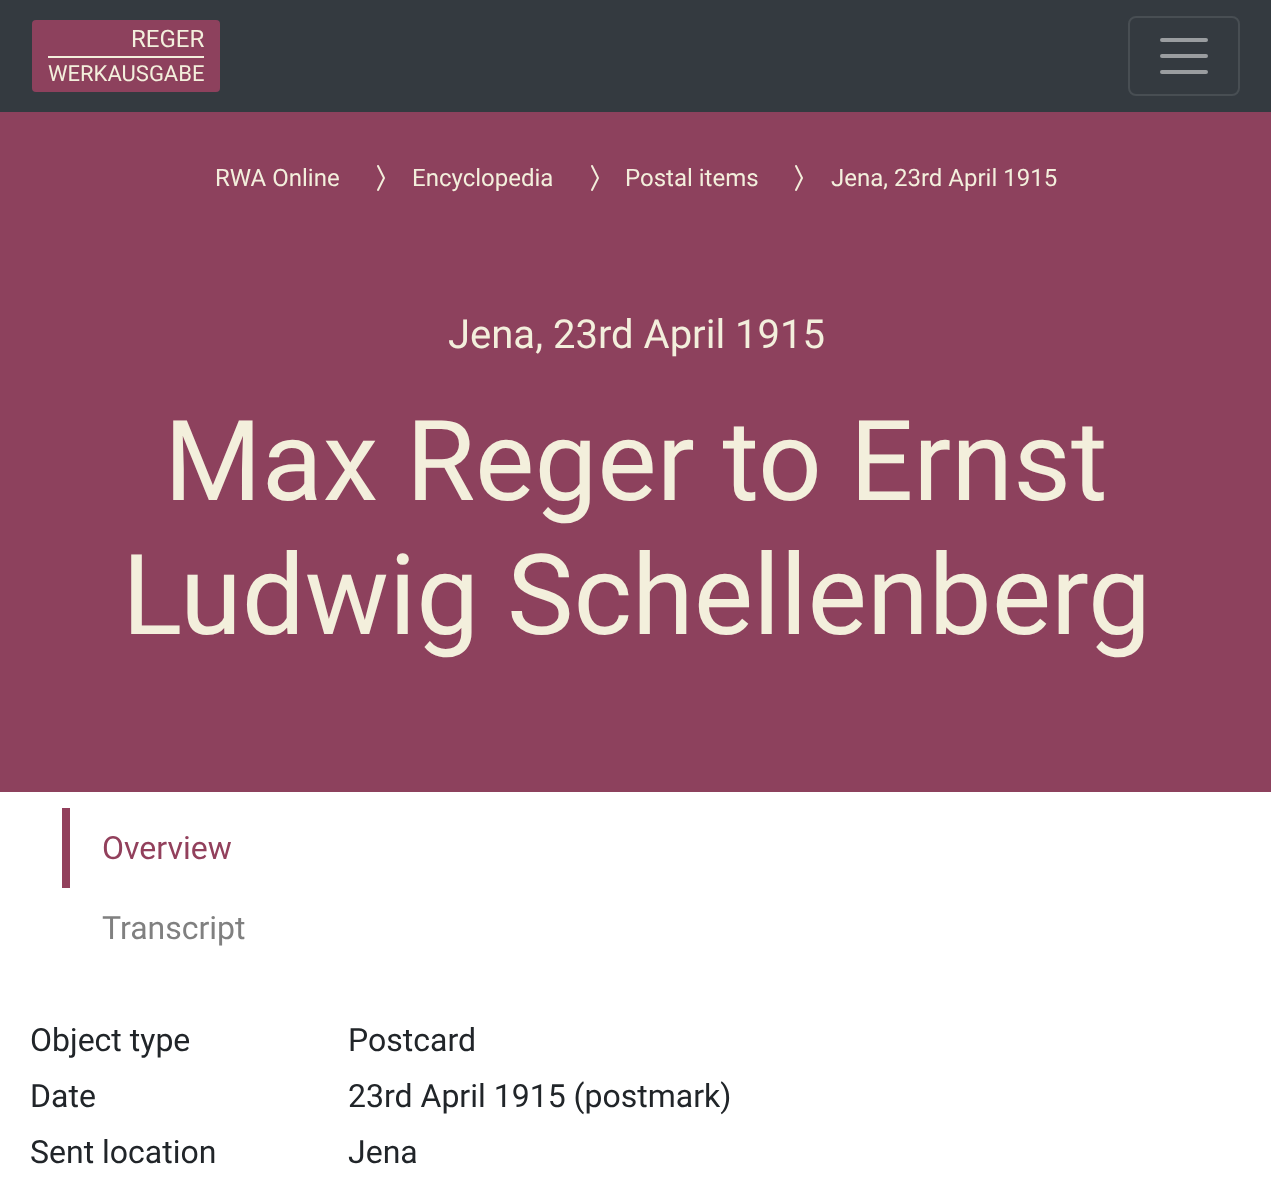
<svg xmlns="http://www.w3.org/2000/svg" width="1271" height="1203">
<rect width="100%" height="100%" fill="#fff"/>
<rect width="1271" height="112" fill="#343a40"/>
<rect x="32" y="20" width="188" height="72" rx="4" fill="#8d415d"/>
<text x="131" y="47" style="font-family:Roboto;font-size:24px;fill:#f3efdc">REGER</text>
<rect x="48" y="56" width="156" height="2" fill="#f3efdc"/>
<text x="48" y="81" style="font-family:Roboto;font-size:22px;fill:#f3efdc">WERKAUSGABE</text>
<rect x="1129" y="17" width="110" height="78" rx="7" fill="none" stroke="#484e53" stroke-width="2"/>
<path d="M1162 40h44m-44 16h44m-44 16h44" fill="none" stroke="#9a9da0" stroke-width="4" stroke-linecap="round"/>
<rect y="112" width="1271" height="680" fill="#8d415d"/>
<text x="215" y="186" style="font-family:Roboto;font-size:24px;fill:#f3efdc">RWA Online</text>
<image x="377" y="165" width="8" height="26" href="media/1.png"/>
<text x="412" y="186" style="font-family:Roboto;font-size:24px;fill:#f3efdc">Encyclopedia</text>
<image x="591" y="165" width="8" height="26" href="media/1.png"/>
<text x="625" y="186" style="font-family:Roboto;font-size:24px;fill:#f3efdc">Postal items</text>
<image x="795" y="165" width="8" height="26" href="media/1.png"/>
<text x="831" y="186" style="font-family:Roboto;font-size:24px;fill:#f3efdc">Jena, 23rd April 1915</text>
<text x="448" y="348" style="font-family:Roboto;font-size:40px;fill:#f3efdc">Jena, 23rd April 1915</text>
<text x="164" y="500" style="font-family:Roboto;font-size:112px;fill:#f3efdc">Max Reger to Ernst</text>
<text x="122" y="634" style="font-family:Roboto;font-size:112px;fill:#f3efdc">Ludwig Schellenberg</text>
<rect x="62" y="808" width="8" height="80" fill="#92405c"/>
<text x="102" y="859" style="font-family:Roboto;font-size:32px;fill:#92405c">Overview</text>
<text x="102" y="939" style="font-family:Roboto;font-size:32px;fill:#808080">Transcript</text>
<text x="30" y="1051" style="font-family:Roboto;font-size:32px;fill:#212529">Object type</text>
<text x="348" y="1051" style="font-family:Roboto;font-size:32px;fill:#212529">Postcard</text>
<text x="30" y="1107" style="font-family:Roboto;font-size:32px;fill:#212529">Date</text>
<text x="348" y="1107" style="font-family:Roboto;font-size:32px;fill:#212529">23rd April 1915 (postmark)</text>
<text x="30" y="1163" style="font-family:Roboto;font-size:32px;fill:#212529">Sent location</text>
<text x="348" y="1163" style="font-family:Roboto;font-size:32px;fill:#212529">Jena</text>
</svg>
